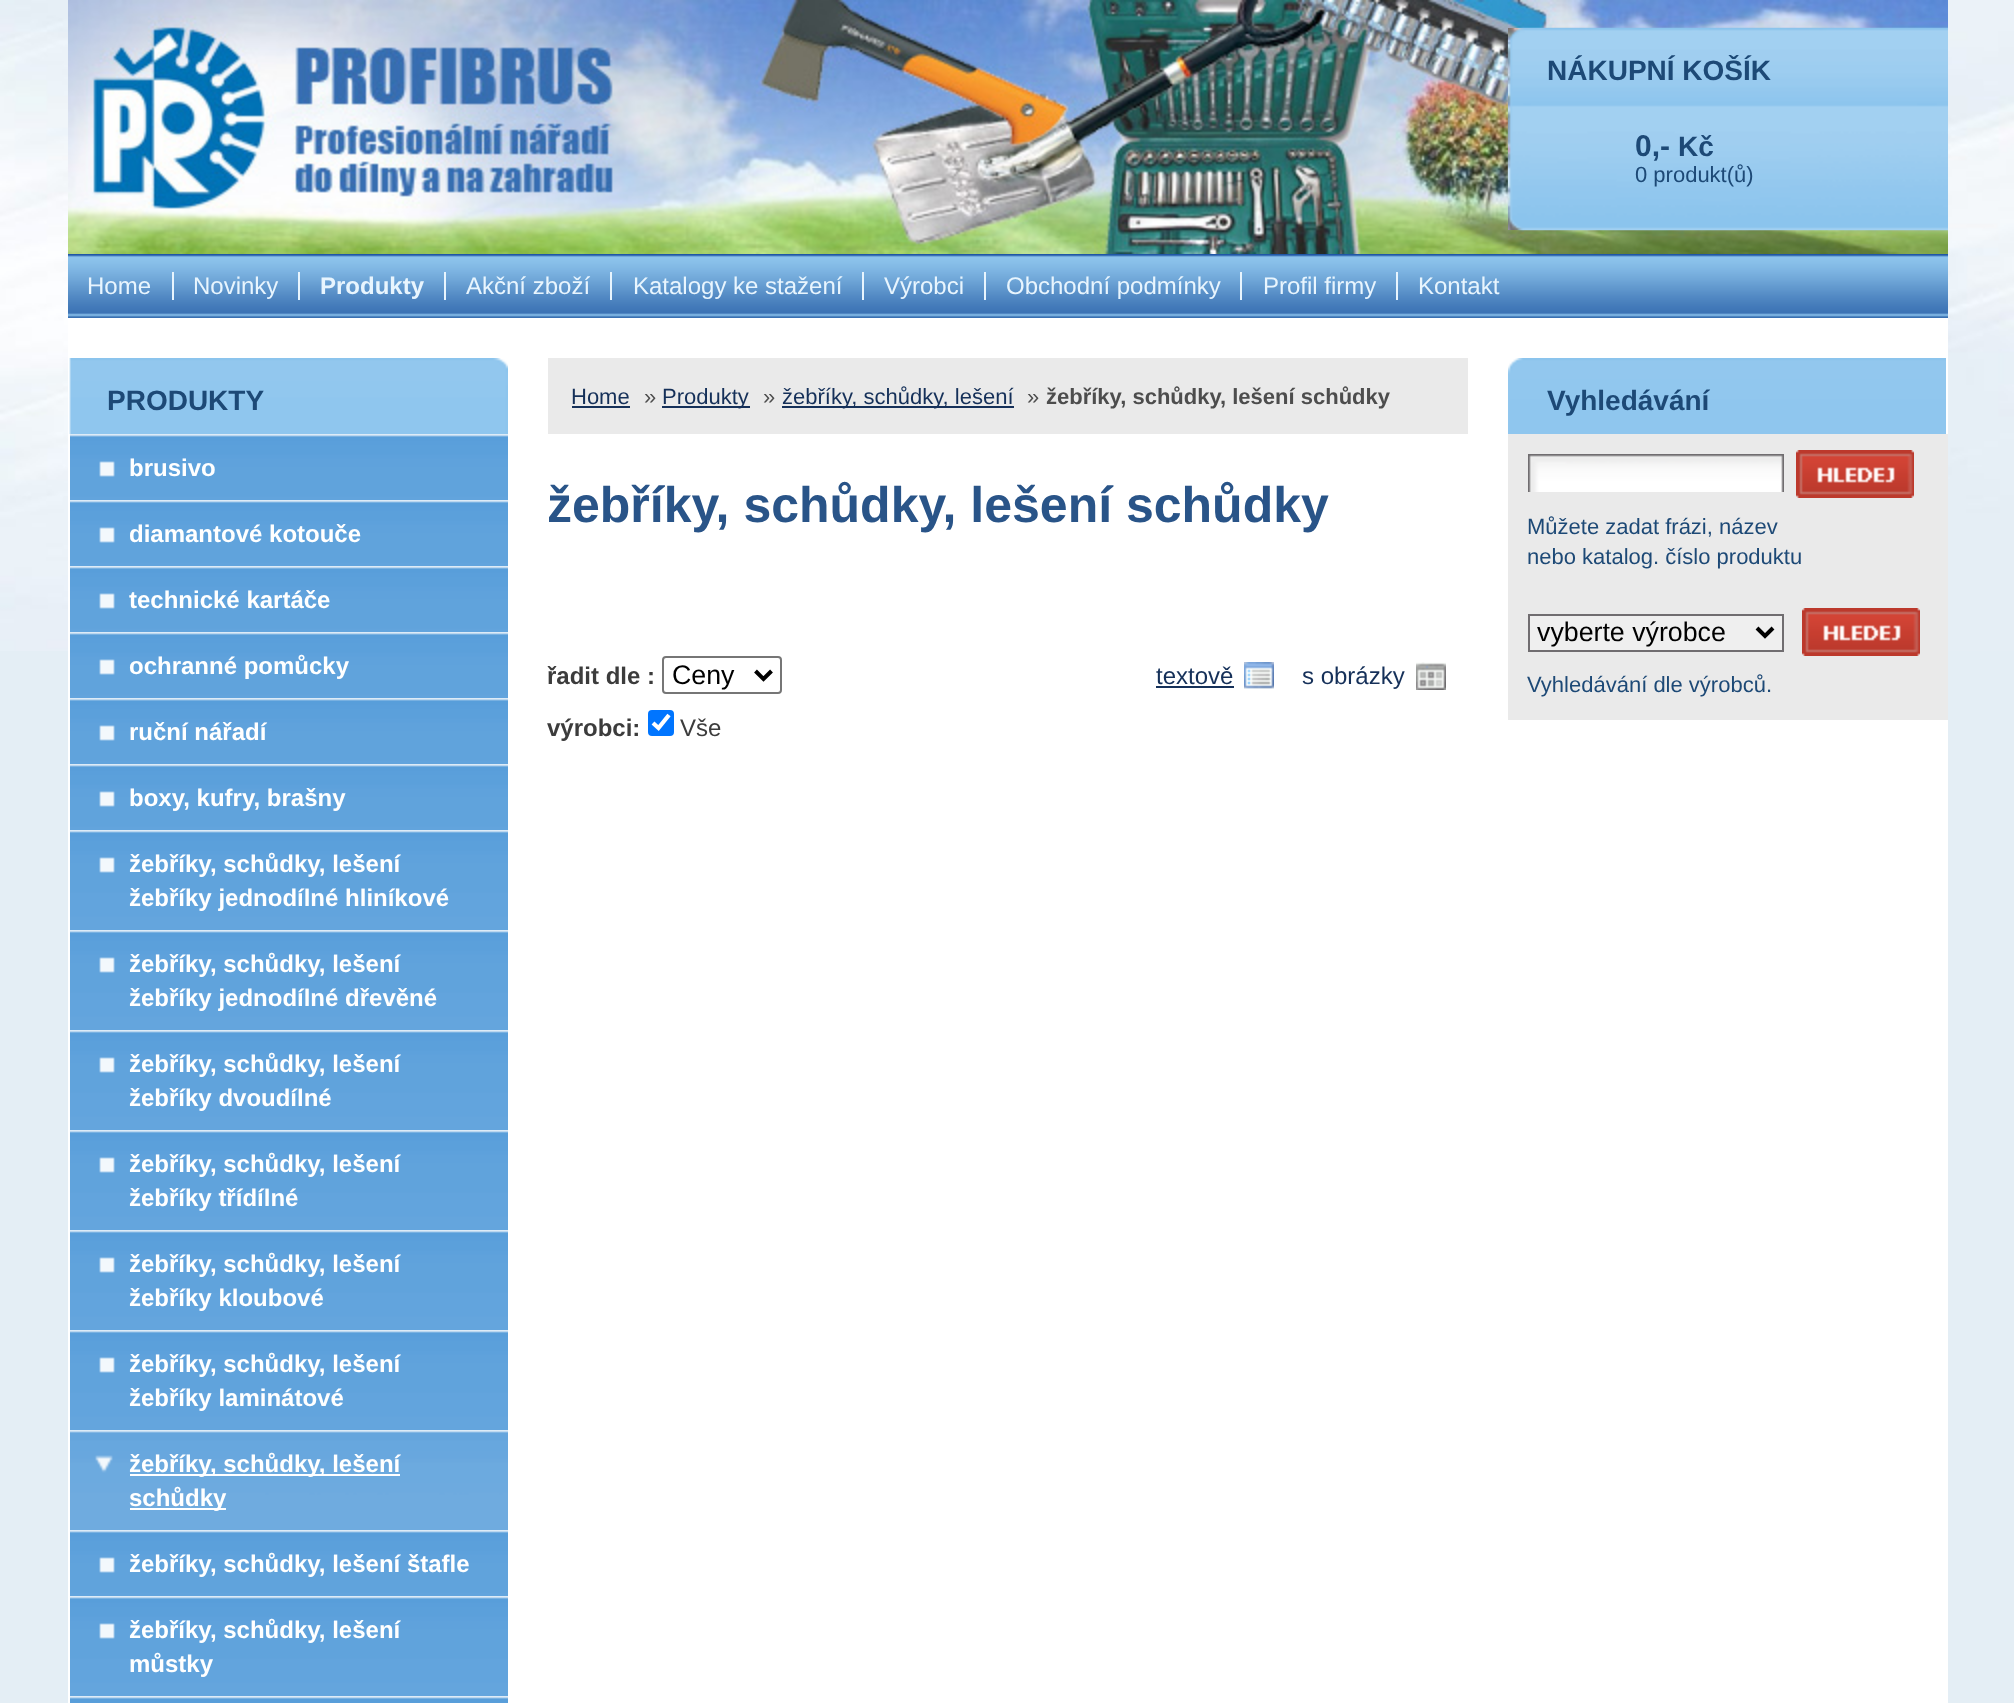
<svg xmlns="http://www.w3.org/2000/svg" width="2014" height="1703">
<rect width="100%" height="100%" fill="#e4eef5"/>
<image x="0" y="0" width="2014" height="651" href="media/1.png"/>
<image x="68" y="0" width="1880" height="254" href="media/2.png"/>
<image x="1508" y="28" width="440" height="202" href="media/3.png"/>
<text x="1547" y="80" style="font-family:Liberation Sans;font-size:28px;font-weight:bold;fill:#1d4976">NÁKUPNÍ KOŠÍK</text>
<text x="1635" y="156" style="font-family:Liberation Sans;font-size:30px;font-weight:bold;fill:#1d4976">0,-</text>
<text x="1678" y="156" style="font-family:Liberation Sans;font-size:28px;font-weight:bold;fill:#1d4976">Kč</text>
<text x="1635" y="182" style="font-family:Liberation Sans;font-size:22px;fill:#1d4976">0 produkt(ů)</text>
<image x="68" y="254" width="1880" height="64" href="media/4.png"/>
<text x="87" y="294" style="font-family:Liberation Sans;font-size:24px;fill:#e8f5fe">Home</text>
<rect x="172" y="272" width="2" height="28" fill="#e8f5fe"/>
<text x="193" y="294" style="font-family:Liberation Sans;font-size:24px;fill:#e8f5fe">Novinky</text>
<rect x="298" y="272" width="2" height="28" fill="#e8f5fe"/>
<text x="320" y="294" style="font-family:Liberation Sans;font-size:24px;font-weight:bold;fill:#e8f5fe">Produkty</text>
<rect x="444" y="272" width="2" height="28" fill="#e8f5fe"/>
<text x="466" y="294" style="font-family:Liberation Sans;font-size:24px;fill:#e8f5fe">Akční zboží</text>
<rect x="610" y="272" width="2" height="28" fill="#e8f5fe"/>
<text x="633" y="294" style="font-family:Liberation Sans;font-size:24px;fill:#e8f5fe">Katalogy ke stažení</text>
<rect x="862" y="272" width="2" height="28" fill="#e8f5fe"/>
<text x="884" y="294" style="font-family:Liberation Sans;font-size:24px;fill:#e8f5fe">Výrobci</text>
<rect x="984" y="272" width="2" height="28" fill="#e8f5fe"/>
<text x="1006" y="294" style="font-family:Liberation Sans;font-size:24px;fill:#e8f5fe">Obchodní podmínky</text>
<rect x="1240" y="272" width="2" height="28" fill="#e8f5fe"/>
<text x="1263" y="294" style="font-family:Liberation Sans;font-size:24px;fill:#e8f5fe">Profil firmy</text>
<rect x="1396" y="272" width="2" height="28" fill="#e8f5fe"/>
<text x="1418" y="294" style="font-family:Liberation Sans;font-size:24px;fill:#e8f5fe">Kontakt</text>
<rect x="68" y="318" width="1880" height="1385" fill="#fff"/>
<image x="69" y="358" width="439" height="76" href="media/5.png"/>
<text x="107" y="410" style="font-family:Liberation Sans;font-size:28px;font-weight:bold;fill:#1d4976">PRODUKTY</text>
<image x="70" y="434" width="438" height="66" href="media/6.png"/>
<text x="129" y="476" style="font-family:Liberation Sans;font-size:24px;font-weight:bold;fill:#fff">brusivo</text>
<image x="70" y="500" width="438" height="66" href="media/6.png"/>
<text x="129" y="542" style="font-family:Liberation Sans;font-size:24px;font-weight:bold;fill:#fff">diamantové kotouče</text>
<image x="70" y="566" width="438" height="66" href="media/6.png"/>
<text x="129" y="608" style="font-family:Liberation Sans;font-size:24px;font-weight:bold;fill:#fff">technické kartáče</text>
<image x="70" y="632" width="438" height="66" href="media/6.png"/>
<text x="129" y="674" style="font-family:Liberation Sans;font-size:24px;font-weight:bold;fill:#fff">ochranné pomůcky</text>
<image x="70" y="698" width="438" height="66" href="media/6.png"/>
<text x="129" y="740" style="font-family:Liberation Sans;font-size:24px;font-weight:bold;fill:#fff">ruční nářadí</text>
<image x="70" y="764" width="438" height="66" href="media/6.png"/>
<text x="129" y="806" style="font-family:Liberation Sans;font-size:24px;font-weight:bold;fill:#fff">boxy, kufry, brašny</text>
<image x="70" y="830" width="438" height="100" href="media/7.png"/>
<text x="129" y="872" style="font-family:Liberation Sans;font-size:24px;font-weight:bold;fill:#fff">žebříky, schůdky, lešení</text>
<text x="129" y="906" style="font-family:Liberation Sans;font-size:24px;font-weight:bold;fill:#fff">žebříky jednodílné hliníkové</text>
<image x="70" y="930" width="438" height="100" href="media/7.png"/>
<text x="129" y="972" style="font-family:Liberation Sans;font-size:24px;font-weight:bold;fill:#fff">žebříky, schůdky, lešení</text>
<text x="129" y="1006" style="font-family:Liberation Sans;font-size:24px;font-weight:bold;fill:#fff">žebříky jednodílné dřevěné</text>
<image x="70" y="1030" width="438" height="100" href="media/7.png"/>
<text x="129" y="1072" style="font-family:Liberation Sans;font-size:24px;font-weight:bold;fill:#fff">žebříky, schůdky, lešení</text>
<text x="129" y="1106" style="font-family:Liberation Sans;font-size:24px;font-weight:bold;fill:#fff">žebříky dvoudílné</text>
<image x="70" y="1130" width="438" height="100" href="media/7.png"/>
<text x="129" y="1172" style="font-family:Liberation Sans;font-size:24px;font-weight:bold;fill:#fff">žebříky, schůdky, lešení</text>
<text x="129" y="1206" style="font-family:Liberation Sans;font-size:24px;font-weight:bold;fill:#fff">žebříky třídílné</text>
<image x="70" y="1230" width="438" height="100" href="media/7.png"/>
<text x="129" y="1272" style="font-family:Liberation Sans;font-size:24px;font-weight:bold;fill:#fff">žebříky, schůdky, lešení</text>
<text x="129" y="1306" style="font-family:Liberation Sans;font-size:24px;font-weight:bold;fill:#fff">žebříky kloubové</text>
<image x="70" y="1330" width="438" height="100" href="media/7.png"/>
<text x="129" y="1372" style="font-family:Liberation Sans;font-size:24px;font-weight:bold;fill:#fff">žebříky, schůdky, lešení</text>
<text x="129" y="1406" style="font-family:Liberation Sans;font-size:24px;font-weight:bold;fill:#fff">žebříky laminátové</text>
<image x="70" y="1430" width="438" height="100" href="media/8.png"/>
<rect x="130" y="1474" width="270" height="2" fill="#fff"/>
<text x="129" y="1472" style="font-family:Liberation Sans;font-size:24px;font-weight:bold;fill:#fff">žebříky, schůdky, lešení</text>
<rect x="130" y="1508" width="96" height="2" fill="#fff"/>
<text x="129" y="1506" style="font-family:Liberation Sans;font-size:24px;font-weight:bold;fill:#fff">schůdky</text>
<image x="70" y="1530" width="438" height="66" href="media/6.png"/>
<text x="129" y="1572" style="font-family:Liberation Sans;font-size:24px;font-weight:bold;fill:#fff">žebříky, schůdky, lešení štafle</text>
<image x="70" y="1596" width="438" height="100" href="media/7.png"/>
<text x="129" y="1638" style="font-family:Liberation Sans;font-size:24px;font-weight:bold;fill:#fff">žebříky, schůdky, lešení</text>
<text x="129" y="1672" style="font-family:Liberation Sans;font-size:24px;font-weight:bold;fill:#fff">můstky</text>
<image x="70" y="1696" width="438" height="7" href="media/9.png"/>
<rect x="548" y="358" width="920" height="76" fill="#eaeaea"/>
<text x="571" y="404" style="font-family:Liberation Sans;font-size:22px;fill:#153059">Home</text>
<rect x="572" y="406" width="58" height="2" fill="#153059"/>
<text x="644" y="404" style="font-family:Liberation Sans;font-size:22px;fill:#4d4d4d">»</text>
<rect x="662" y="406" width="88" height="2" fill="#153059"/>
<text x="662" y="404" style="font-family:Liberation Sans;font-size:22px;fill:#153059">Produkty</text>
<text x="763" y="404" style="font-family:Liberation Sans;font-size:22px;fill:#4d4d4d">»</text>
<rect x="782" y="406" width="232" height="2" fill="#153059"/>
<text x="782" y="404" style="font-family:Liberation Sans;font-size:22px;fill:#153059">žebříky, schůdky, lešení</text>
<text x="1027" y="404" style="font-family:Liberation Sans;font-size:22px;fill:#4d4d4d">»</text>
<text x="1046" y="404" style="font-family:Liberation Sans;font-size:22px;font-weight:bold;fill:#4d4d4d">žebříky, schůdky, lešení schůdky</text>
<text x="547" y="522" style="font-family:Liberation Sans;font-size:50px;font-weight:bold;fill:#295488">žebříky, schůdky, lešení schůdky</text>
<text x="547" y="684" style="font-family:Liberation Sans;font-size:24px;font-weight:bold;fill:#3c3c3c">řadit dle :</text>
<rect x="663" y="657" width="118" height="36" rx="3" fill="none" stroke="#767676" stroke-width="2"/>
<path d="M755.5 671l8 8l8-8" fill="none" stroke="#000" stroke-width="4"/>
<text x="672" y="684" style="font-family:Liberation Sans;font-size:26.75px;fill:#000">Ceny</text>
<text x="1156" y="684" style="font-family:Liberation Sans;font-size:24px;fill:#153059">textově</text>
<rect x="1156" y="686" width="78" height="2" fill="#153059"/>
<image x="1244" y="662" width="30" height="27" href="media/10.png"/>
<text x="1302" y="684" style="font-family:Liberation Sans;font-size:24px;fill:#153059">s obrázky</text>
<image x="1416" y="662" width="30" height="28" href="media/11.png"/>
<text x="547" y="736" style="font-family:Liberation Sans;font-size:24px;font-weight:bold;fill:#3c3c3c">výrobci:</text>
<rect x="648" y="710" width="26" height="26" rx="4" fill="#0075ff"/>
<path d="M653 723l5.5 5l10.5-13" fill="none" stroke="#fff" stroke-width="4.2"/>
<text x="680" y="736" style="font-family:Liberation Sans;font-size:24px;fill:#3c3c3c">Vše</text>
<image x="1508" y="358" width="438" height="76" href="media/12.png"/>
<text x="1547" y="410" style="font-family:Liberation Sans;font-size:28px;font-weight:bold;fill:#1d4976">Vyhledávání</text>
<rect x="1508" y="434" width="440" height="286" fill="#eaeaea"/>
<image x="1528" y="454" width="256" height="38" href="media/13.png"/>
<image x="1796" y="450" width="118" height="48" href="media/14.png"/>
<text x="1527" y="534" style="font-family:Liberation Sans;font-size:22px;fill:#1d4976">Můžete zadat frázi, název</text>
<text x="1527" y="564" style="font-family:Liberation Sans;font-size:22px;fill:#1d4976">nebo katalog. číslo produktu</text>
<rect x="1529" y="615" width="254" height="36" fill="#efefef" stroke="#706d70" stroke-width="2"/>
<path d="M1757 628l8 8l8-8" fill="none" stroke="#000" stroke-width="4"/>
<text x="1537" y="641" style="font-family:Liberation Sans;font-size:26.75px;fill:#000">vyberte výrobce</text>
<image x="1802" y="608" width="118" height="48" href="media/14.png"/>
<text x="1527" y="692" style="font-family:Liberation Sans;font-size:22px;fill:#1d4976">Vyhledávání dle výrobců.</text>
</svg>
